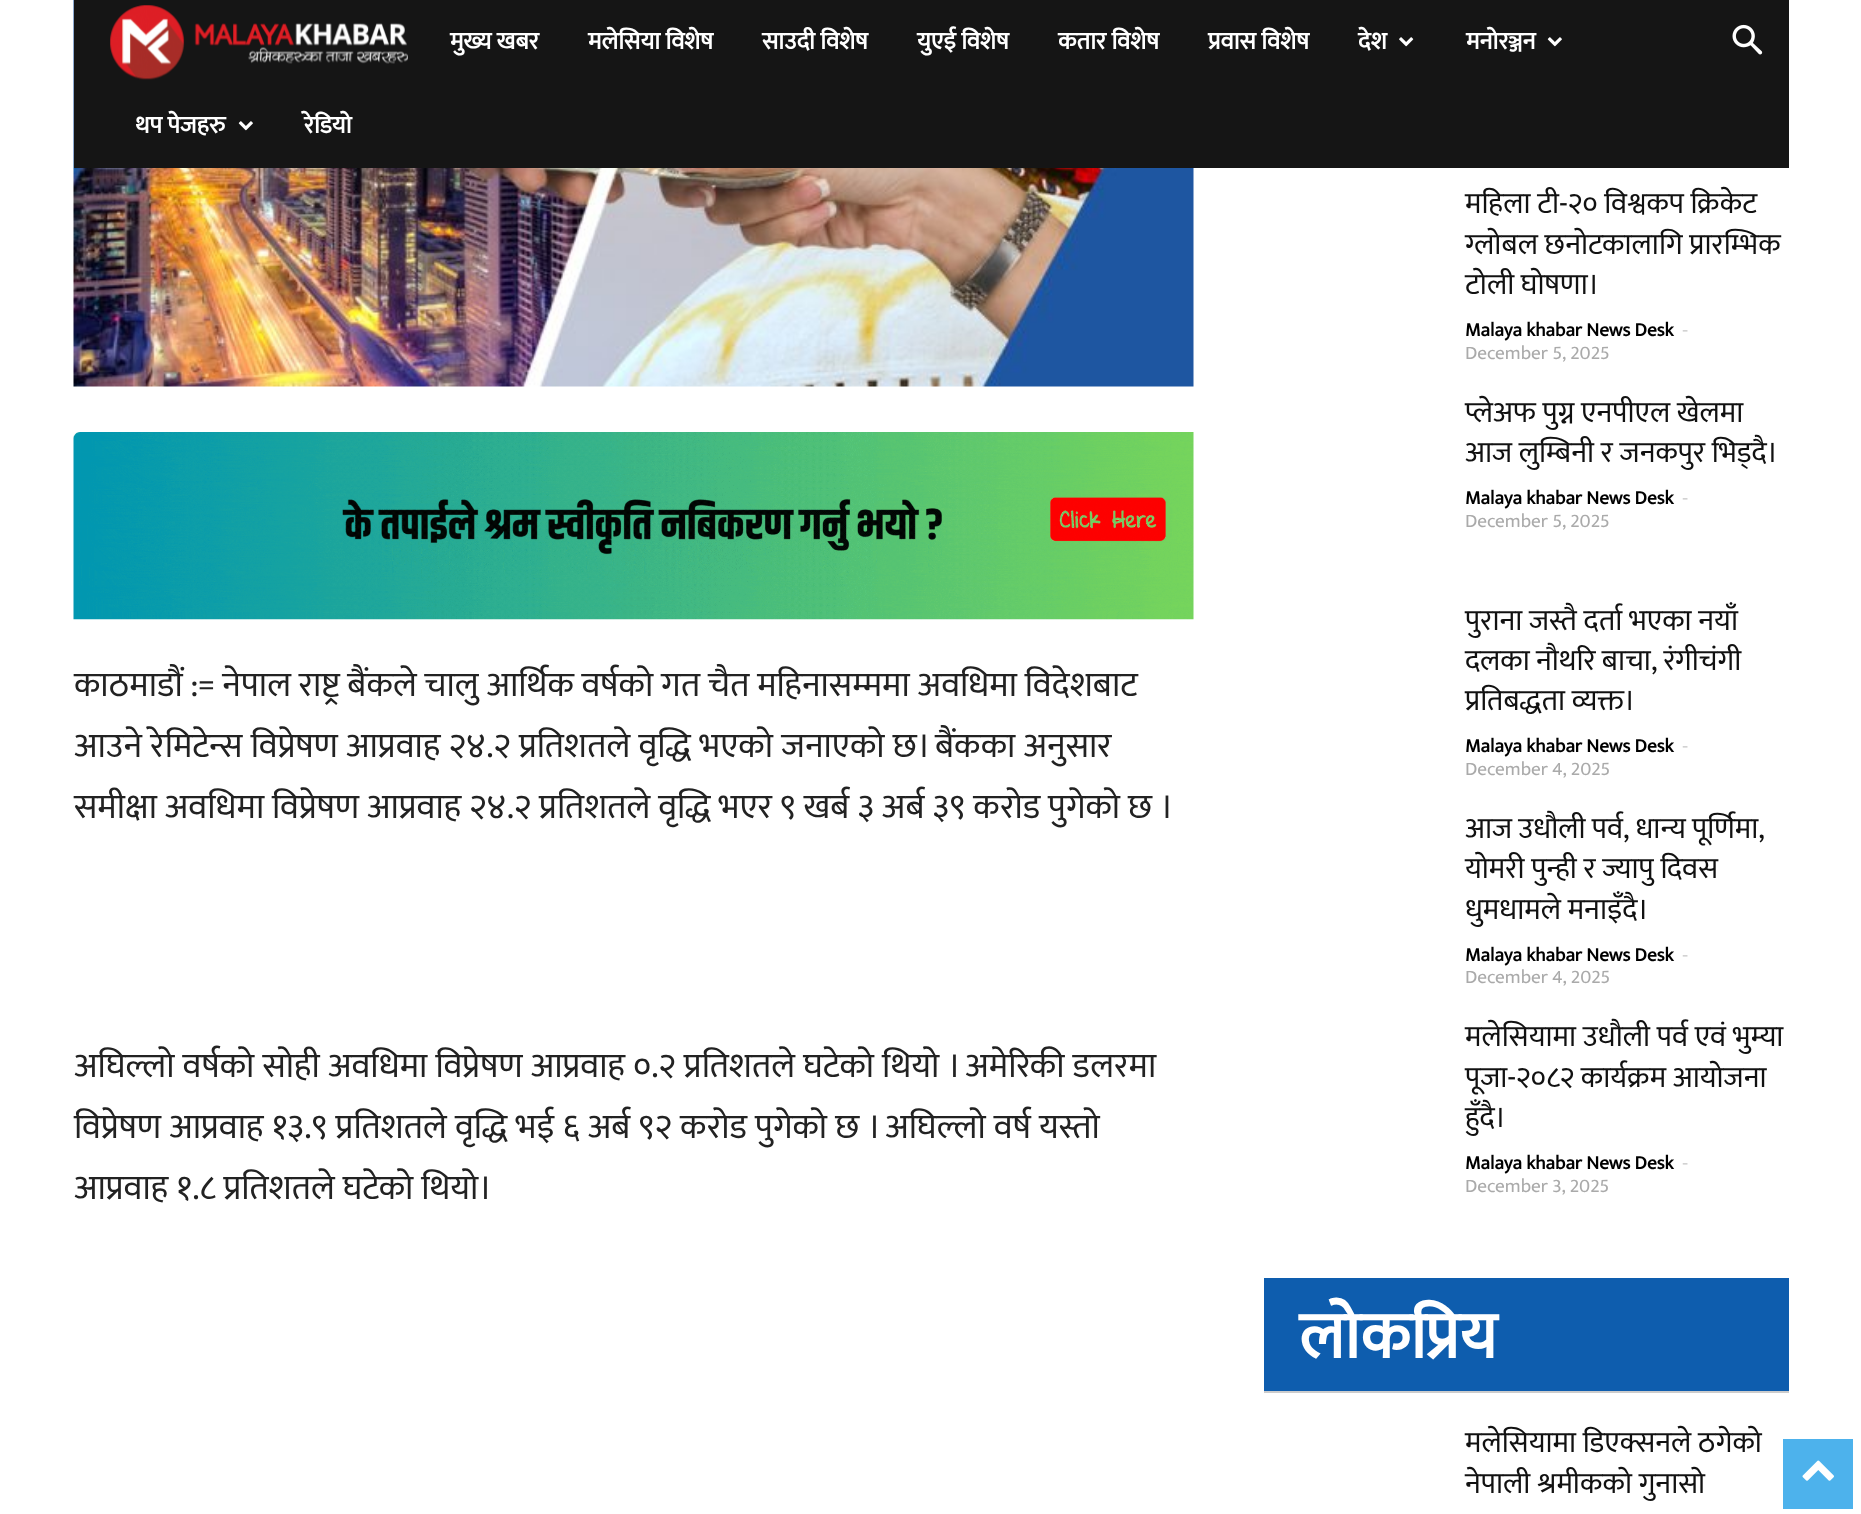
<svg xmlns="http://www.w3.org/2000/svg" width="1861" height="1514">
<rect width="100%" height="100%" fill="#fff"/>
<image x="73" y="0" width="1121" height="387" href="media/5.png"/>
<rect x="74" width="1715" height="168" fill="#151515"/>
<image x="110" y="5" width="298" height="75" href="media/1.png"/>
<text x="450" y="49" style="font-family:Mukta;font-size:24.5px;font-weight:bold;fill:#fff">मुख्य खबर</text>
<text x="588" y="49" style="font-family:Mukta;font-size:24.5px;font-weight:bold;fill:#fff">मलेसिया विशेष</text>
<text x="762" y="49" style="font-family:Mukta;font-size:24.5px;font-weight:bold;fill:#fff">साउदी विशेष</text>
<text x="917" y="49" style="font-family:Mukta;font-size:24.5px;font-weight:bold;fill:#fff">युएई विशेष</text>
<text x="1058" y="49" style="font-family:Mukta;font-size:24.5px;font-weight:bold;fill:#fff">कतार विशेष</text>
<text x="1208" y="49" style="font-family:Mukta;font-size:24.5px;font-weight:bold;fill:#fff">प्रवास विशेष</text>
<text x="1358" y="49" style="font-family:Mukta;font-size:24.5px;font-weight:bold;fill:#fff">देश</text>
<image x="1399" y="37" width="15" height="10" href="media/2.png"/>
<text x="1466" y="49" style="font-family:Mukta;font-size:24.5px;font-weight:bold;fill:#fff">मनोरञ्जन</text>
<image x="1547" y="37" width="15" height="10" href="media/3.png"/>
<text x="135" y="133" style="font-family:Mukta;font-size:24.5px;font-weight:bold;fill:#fff">थप पेजहरु</text>
<image x="238" y="121" width="15" height="10" href="media/3.png"/>
<text x="304" y="133" style="font-family:Mukta;font-size:24.5px;font-weight:bold;fill:#fff">रेडियो</text>
<image x="1732" y="24" width="31" height="31" href="media/4.png"/>
<image x="73" y="432" width="1121" height="188" href="media/6.png"/>
<text x="74" y="696" style="font-family:Mukta;font-size:35px;fill:#222">काठमाडौं := नेपाल राष्ट्र बैंकले चालु आर्थिक वर्षको गत चैत महिनासम्ममा अवधिमा विदेशबाट</text>
<text x="74" y="757" word-spacing="0.4" style="font-family:Mukta;font-size:35px;fill:#222">आउने रेमिटेन्स विप्रेषण आप्रवाह २४.२ प्रतिशतले वृद्धि भएको जनाएको छ। बैंकका अनुसार</text>
<text x="74" y="818" style="font-family:Mukta;font-size:35px;fill:#222">समीक्षा अवधिमा विप्रेषण आप्रवाह २४.२ प्रतिशतले वृद्धि भएर ९ खर्ब ३ अर्ब ३९ करोड पुगेको छ ।</text>
<text x="74" y="1077" word-spacing="0.3" style="font-family:Mukta;font-size:35px;fill:#222">अघिल्लो वर्षको सोही अवधिमा विप्रेषण आप्रवाह ०.२ प्रतिशतले घटेको थियो । अमेरिकी डलरमा</text>
<text x="74" y="1138" word-spacing="0.25" style="font-family:Mukta;font-size:35px;fill:#222">विप्रेषण आप्रवाह १३.९ प्रतिशतले वृद्धि भई ६ अर्ब ९२ करोड पुगेको छ । अघिल्लो वर्ष यस्तो</text>
<text x="74" y="1199" style="font-family:Mukta;font-size:35px;fill:#222">आप्रवाह १.८ प्रतिशतले घटेको थियो।</text>
<text x="1465" y="213" style="font-family:Mukta;font-size:29.75px;fill:#111">महिला टी-२० विश्वकप क्रिकेट</text>
<text x="1465" y="254" style="font-family:Mukta;font-size:29.75px;fill:#111">ग्लोबल छनोटकालागि प्रारम्भिक</text>
<text x="1465" y="294" style="font-family:Mukta;font-size:29.75px;fill:#111">टोली घोषणा।</text>
<text x="1465" y="336" style="font-family:Mukta;font-size:19.25px;font-weight:bold;fill:#000">Malaya khabar News Desk</text>
<text x="1682" y="336" style="font-family:Open Sans;font-size:19.25px;fill:#ccc">-</text>
<text x="1465" y="359" style="font-family:Mukta;font-size:19.25px;fill:#aaa">December 5, 2025</text>
<text x="1465" y="422" style="font-family:Mukta;font-size:29.75px;fill:#111">प्लेअफ पुग्न एनपीएल खेलमा</text>
<text x="1465" y="462" style="font-family:Mukta;font-size:29.75px;fill:#111">आज लुम्बिनी र जनकपुर भिड्दै।</text>
<text x="1465" y="504" style="font-family:Mukta;font-size:19.25px;font-weight:bold;fill:#000">Malaya khabar News Desk</text>
<text x="1682" y="504" style="font-family:Open Sans;font-size:19.25px;fill:#ccc">-</text>
<text x="1465" y="527" style="font-family:Mukta;font-size:19.25px;fill:#aaa">December 5, 2025</text>
<text x="1465" y="630" style="font-family:Mukta;font-size:29.75px;fill:#111">पुराना जस्तै दर्ता भएका नयाँ</text>
<text x="1465" y="670" word-spacing="-0.5" style="font-family:Mukta;font-size:29.75px;fill:#111">दलका नौथरि बाचा, रंगीचंगी</text>
<text x="1465" y="710" style="font-family:Mukta;font-size:29.75px;fill:#111">प्रतिबद्धता व्यक्त।</text>
<text x="1465" y="752" style="font-family:Mukta;font-size:19.25px;font-weight:bold;fill:#000">Malaya khabar News Desk</text>
<text x="1682" y="752" style="font-family:Open Sans;font-size:19.25px;fill:#ccc">-</text>
<text x="1465" y="775" style="font-family:Mukta;font-size:19.25px;fill:#aaa">December 4, 2025</text>
<text x="1465" y="838" word-spacing="-0.5" style="font-family:Mukta;font-size:29.75px;fill:#111">आज उधौली पर्व, धान्य पूर्णिमा,</text>
<text x="1465" y="878" style="font-family:Mukta;font-size:29.75px;fill:#111">योमरी पुन्ही र ज्यापु दिवस</text>
<text x="1465" y="919" style="font-family:Mukta;font-size:29.75px;fill:#111">धुमधामले मनाइँदै।</text>
<text x="1465" y="961" style="font-family:Mukta;font-size:19.25px;font-weight:bold;fill:#000">Malaya khabar News Desk</text>
<text x="1682" y="961" style="font-family:Open Sans;font-size:19.25px;fill:#ccc">-</text>
<text x="1465" y="983" style="font-family:Mukta;font-size:19.25px;fill:#aaa">December 4, 2025</text>
<text x="1465" y="1046" style="font-family:Mukta;font-size:29.75px;fill:#111">मलेसियामा उधौली पर्व एवं भुम्या</text>
<text x="1465" y="1087" style="font-family:Mukta;font-size:29.75px;fill:#111">पूजा-२०८२ कार्यक्रम आयोजना</text>
<text x="1465" y="1127" style="font-family:Mukta;font-size:29.75px;fill:#111">हुँदै।</text>
<text x="1465" y="1169" style="font-family:Mukta;font-size:19.25px;font-weight:bold;fill:#000">Malaya khabar News Desk</text>
<text x="1682" y="1169" style="font-family:Open Sans;font-size:19.25px;fill:#ccc">-</text>
<text x="1465" y="1192" style="font-family:Mukta;font-size:19.25px;fill:#aaa">December 3, 2025</text>
<rect x="1264" y="1278" width="525" height="113" fill="#0e5dae"/>
<rect x="1264" y="1391" width="525" height="2" fill="#ccc"/>
<text x="1299" y="1358" style="font-family:Mukta;font-size:66.5px;font-weight:bold;fill:#fff">लोकप्रिय</text>
<text x="1465" y="1452" style="font-family:Mukta;font-size:29.75px;fill:#111">मलेसियामा डिएक्सनले ठगेको</text>
<text x="1465" y="1493" style="font-family:Mukta;font-size:29.75px;fill:#111">नेपाली श्रमीकको गुनासो</text>
<rect x="1783" y="1439" width="70" height="70" fill="#4db2ec"/>
<image x="1802" y="1460" width="32" height="21" href="media/7.png"/>
</svg>
